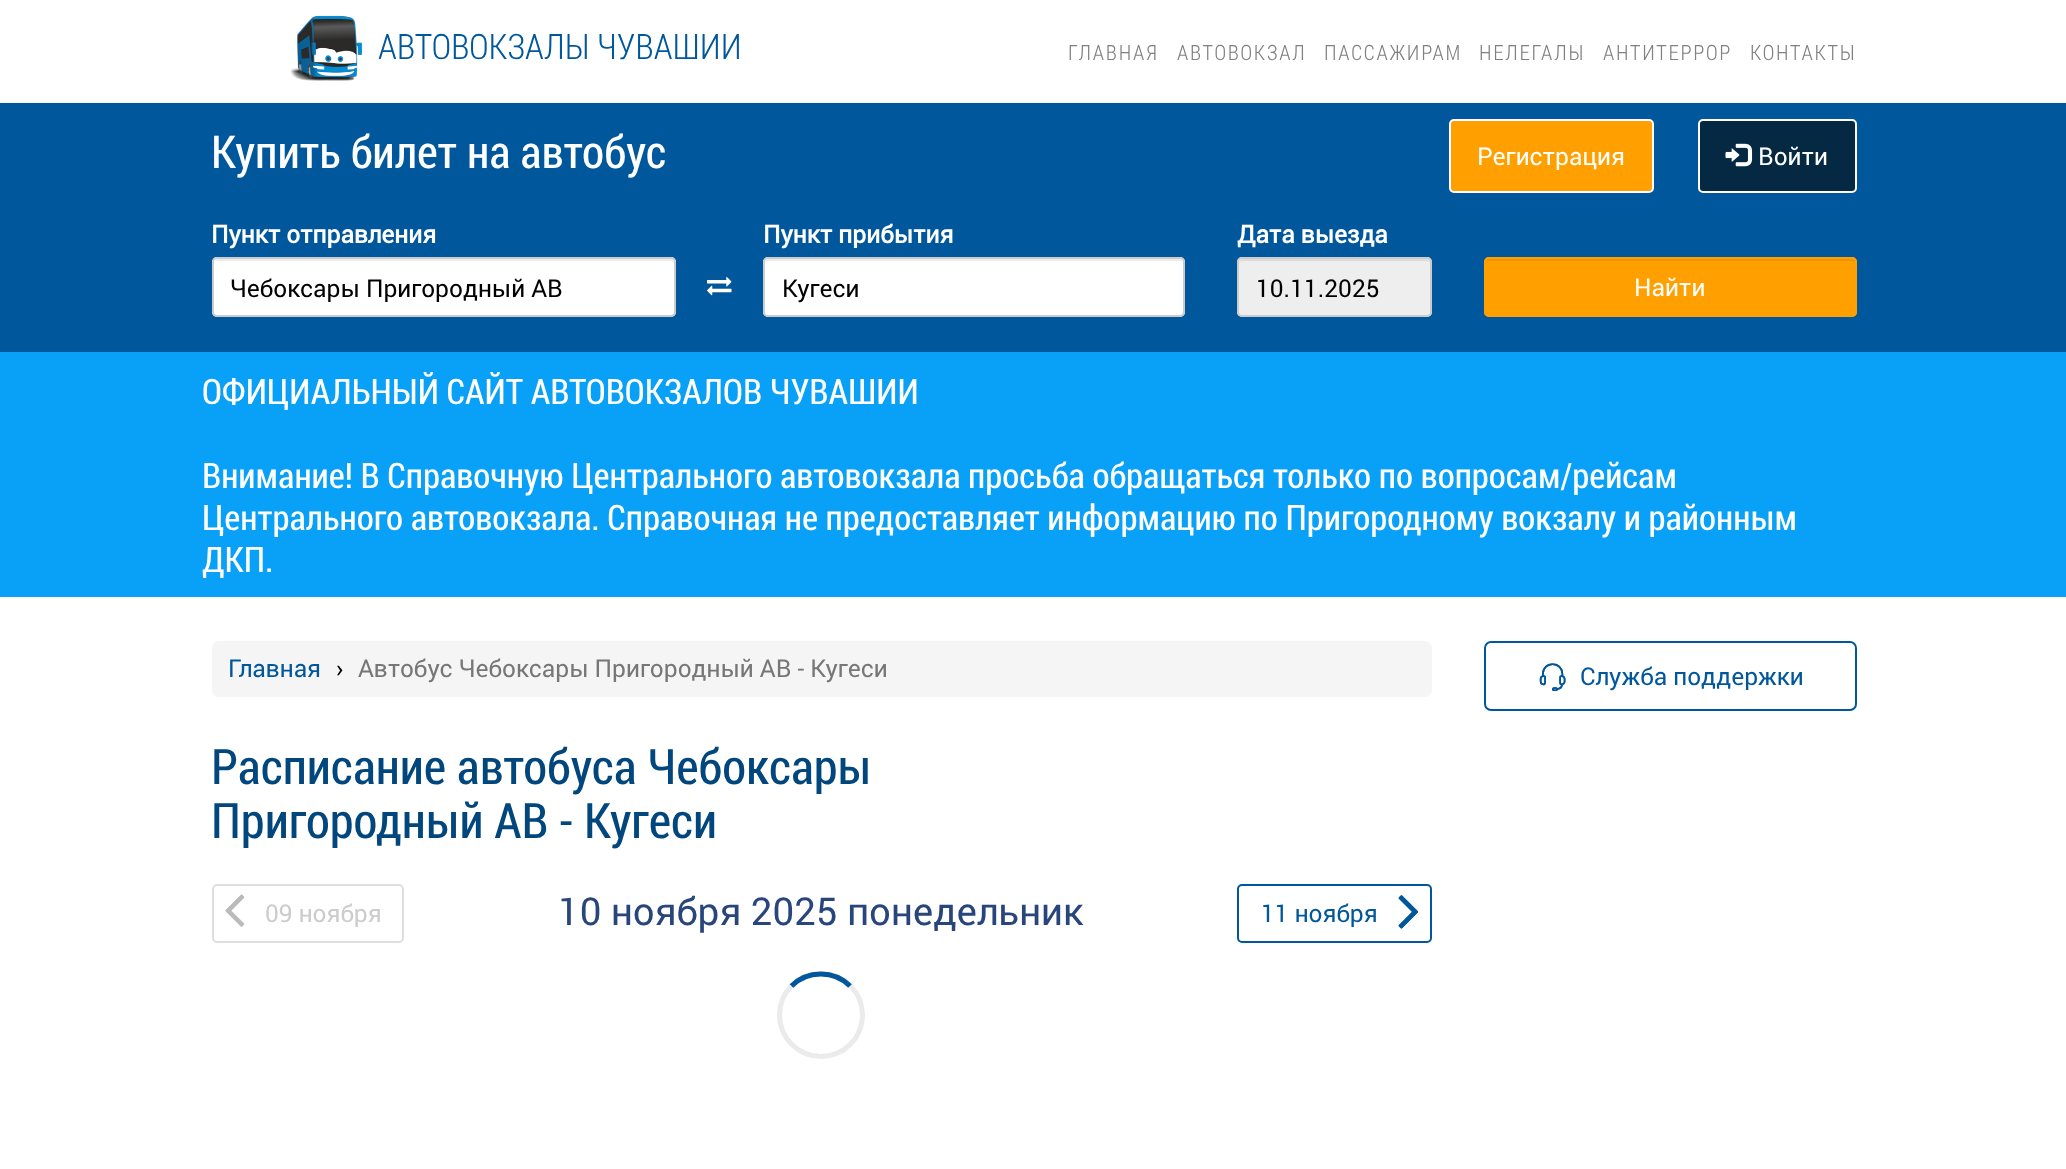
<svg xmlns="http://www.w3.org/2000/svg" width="2066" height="1169">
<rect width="100%" height="100%" fill="#fff"/>
<image x="290" y="15" width="73" height="66" href="media/1.png"/>
<text x="378" y="59" style="font-family:Roboto Condensed;font-size:35px;font-weight:300;fill:#01579b">АВТОВОКЗАЛЫ ЧУВАШИИ</text>
<text x="1068" y="60" style="font-family:Roboto Condensed;font-size:21px;font-weight:300;letter-spacing:1.75px;fill:#808080">ГЛАВНАЯ</text>
<text x="1177" y="60" style="font-family:Roboto Condensed;font-size:21px;font-weight:300;letter-spacing:1.75px;fill:#808080">АВТОВОКЗАЛ</text>
<text x="1324" y="60" style="font-family:Roboto Condensed;font-size:21px;font-weight:300;letter-spacing:1.75px;fill:#808080">ПАССАЖИРАМ</text>
<text x="1479" y="60" style="font-family:Roboto Condensed;font-size:21px;font-weight:300;letter-spacing:1.75px;fill:#808080">НЕЛЕГАЛЫ</text>
<text x="1603" y="60" style="font-family:Roboto Condensed;font-size:21px;font-weight:300;letter-spacing:1.75px;fill:#808080">АНТИТЕРРОР</text>
<text x="1750" y="60" style="font-family:Roboto Condensed;font-size:21px;font-weight:300;letter-spacing:1.75px;fill:#808080">КОНТАКТЫ</text>
<rect y="103" width="2066" height="249" fill="#01579b"/>
<text x="211" y="168" style="font-family:Roboto Condensed;font-size:45.5px;fill:#fff">Купить билет на автобус</text>
<rect x="1450" y="120" width="203" height="72" rx="4" fill="#ffa000" stroke="#fff" stroke-width="2"/>
<text x="1477" y="165" style="font-family:Roboto;font-size:24.5px;fill:#fff">Регистрация</text>
<rect x="1699" y="120" width="157" height="72" rx="4" fill="#052843" stroke="#fff" stroke-width="2"/>
<image x="1725" y="143" width="28" height="24" href="media/2.png"/>
<text x="1758" y="165" style="font-family:Roboto;font-size:24.5px;fill:#fff">Войти</text>
<text x="211" y="243" style="font-family:Roboto;font-size:24.5px;font-weight:bold;fill:#fff">Пункт отправления</text>
<rect x="212" y="257" width="464" height="60" rx="5" fill="#fff"/>
<path d="M217 261h453c2 0 4 1 4 3c0-3-1-5-4-5h-452l-2 1l-1 1l-1 3c0-2 1-3 3-3z" fill="#ececec"/>
<rect x="213" y="258" width="462" height="58" rx="4" fill="none" stroke="#ccc" stroke-width="2"/>
<text x="230" y="297" style="font-family:Roboto;font-size:24.5px;fill:#000">Чебоксары Пригородный АВ</text>
<image x="707" y="277" width="25" height="19" href="media/3.png"/>
<text x="763" y="243" style="font-family:Roboto;font-size:24.5px;font-weight:bold;fill:#fff">Пункт прибытия</text>
<rect x="763" y="257" width="422" height="60" rx="5" fill="#fff"/>
<path d="M768 261h412c1 0 3 1 3 3v-1c0-2-2-4-4-4h-410c-2 0-4 2-4 4v1c0-2 1-3 3-3z" fill="#ececec"/>
<rect x="764" y="258" width="420" height="58" rx="4" fill="none" stroke="#ccc" stroke-width="2"/>
<text x="782" y="297" style="font-family:Roboto;font-size:24.5px;fill:#000">Кугеси</text>
<text x="1237" y="243" style="font-family:Roboto;font-size:24.5px;font-weight:bold;fill:#fff">Дата выезда</text>
<rect x="1237" y="257" width="195" height="60" rx="5" fill="#eee"/>
<path d="M1242 261h184c2 0 4 1 4 3c0-3-1-5-4-5h-184c-2 1-3 3-3 5c0-2 2-3 3-3z" fill="#dcdcdc"/>
<rect x="1238" y="258" width="193" height="58" rx="4" fill="none" stroke="#ccc" stroke-width="2"/>
<text x="1256" y="297" style="font-family:Roboto;font-size:24.5px;fill:#000">10.11.2025</text>
<rect x="1484" y="257" width="373" height="60" rx="5" fill="#ffa000"/>
<path d="M1489 261h363c1 0 3 1 3 3c0-3-1-5-4-5h-361c-3 0-4 2-4 5c0-2 1-3 3-3z" fill="#ec9400"/>
<rect x="1485" y="258" width="371" height="58" rx="4" fill="none" stroke="#ffa000" stroke-width="2"/>
<text x="1634" y="296" style="font-family:Roboto;font-size:24.5px;fill:#fff">Найти</text>
<rect y="352" width="2066" height="245" fill="#09a0f7"/>
<text x="202" y="404" style="font-family:Roboto Condensed;font-size:35px;fill:#fff">ОФИЦИАЛЬНЫЙ САЙТ АВТОВОКЗАЛОВ ЧУВАШИИ</text>
<text x="202" y="488" style="font-family:Roboto Condensed;font-size:35px;fill:#fff">Внимание! В Справочную Центрального автовокзала просьба обращаться только по вопросам/рейсам</text>
<text x="202" y="530" style="font-family:Roboto Condensed;font-size:35px;fill:#fff">Центрального автовокзала. Справочная не предоставляет информацию по Пригородному вокзалу и районным</text>
<text x="202" y="572" style="font-family:Roboto Condensed;font-size:35px;fill:#fff">ДКП.</text>
<rect x="212" y="641" width="1220" height="56" rx="7" fill="#f5f5f5"/>
<text x="228" y="677" style="font-family:Roboto;font-size:24.5px;fill:#01579b">Главная</text>
<text x="336" y="677" style="font-family:Roboto;font-size:24.5px;fill:#000">›</text>
<text x="358" y="677" style="font-family:Roboto;font-size:24.5px;fill:#777">Автобус Чебоксары Пригородный АВ - Кугеси</text>
<text x="211" y="784" style="font-family:Roboto Condensed;font-size:49px;fill:#01467c">Расписание автобуса Чебоксары</text>
<text x="211" y="838" style="font-family:Roboto Condensed;font-size:49px;fill:#01467c">Пригородный АВ - Кугеси</text>
<rect x="213" y="885" width="190" height="57" rx="4" fill="none" stroke="#dedede" stroke-width="2"/>
<image x="225" y="894" width="20" height="33" href="media/4.png"/>
<image x="225" y="894" width="20" height="33" href="media/5.png"/>
<text x="265" y="922" style="font-family:Roboto;font-size:24.5px;fill:#ccc">09 ноября</text>
<text x="558" y="925" style="font-family:Roboto;font-size:38.5px;fill:#28467c">10 ноября 2025 понедельник</text>
<rect x="1238" y="885" width="193" height="57" rx="4" fill="none" stroke="#01579b" stroke-width="2"/>
<image x="1398" y="895" width="20" height="34" href="media/6.png"/>
<text x="1261" y="922" style="font-family:Roboto;font-size:24.5px;fill:#01579b">11 ноября</text>
<image x="1398" y="895" width="20" height="34" href="media/7.png"/>
<circle cx="821" cy="1015" r="41.5" fill="none" stroke="#ebebeb" stroke-width="5"/>
<path d="M791.5 986c16-16 42.5-16 58.5 0" fill="none" stroke="#01579b" stroke-width="5.2"/>
<rect x="1485" y="642" width="371" height="68" rx="6" fill="none" stroke="#01579b" stroke-width="2"/>
<image x="1539" y="663" width="27" height="28" href="media/8.png"/>
<text x="1580" y="685" style="font-family:Roboto;font-size:24.5px;fill:#01579b">Служба поддержки</text>
</svg>
